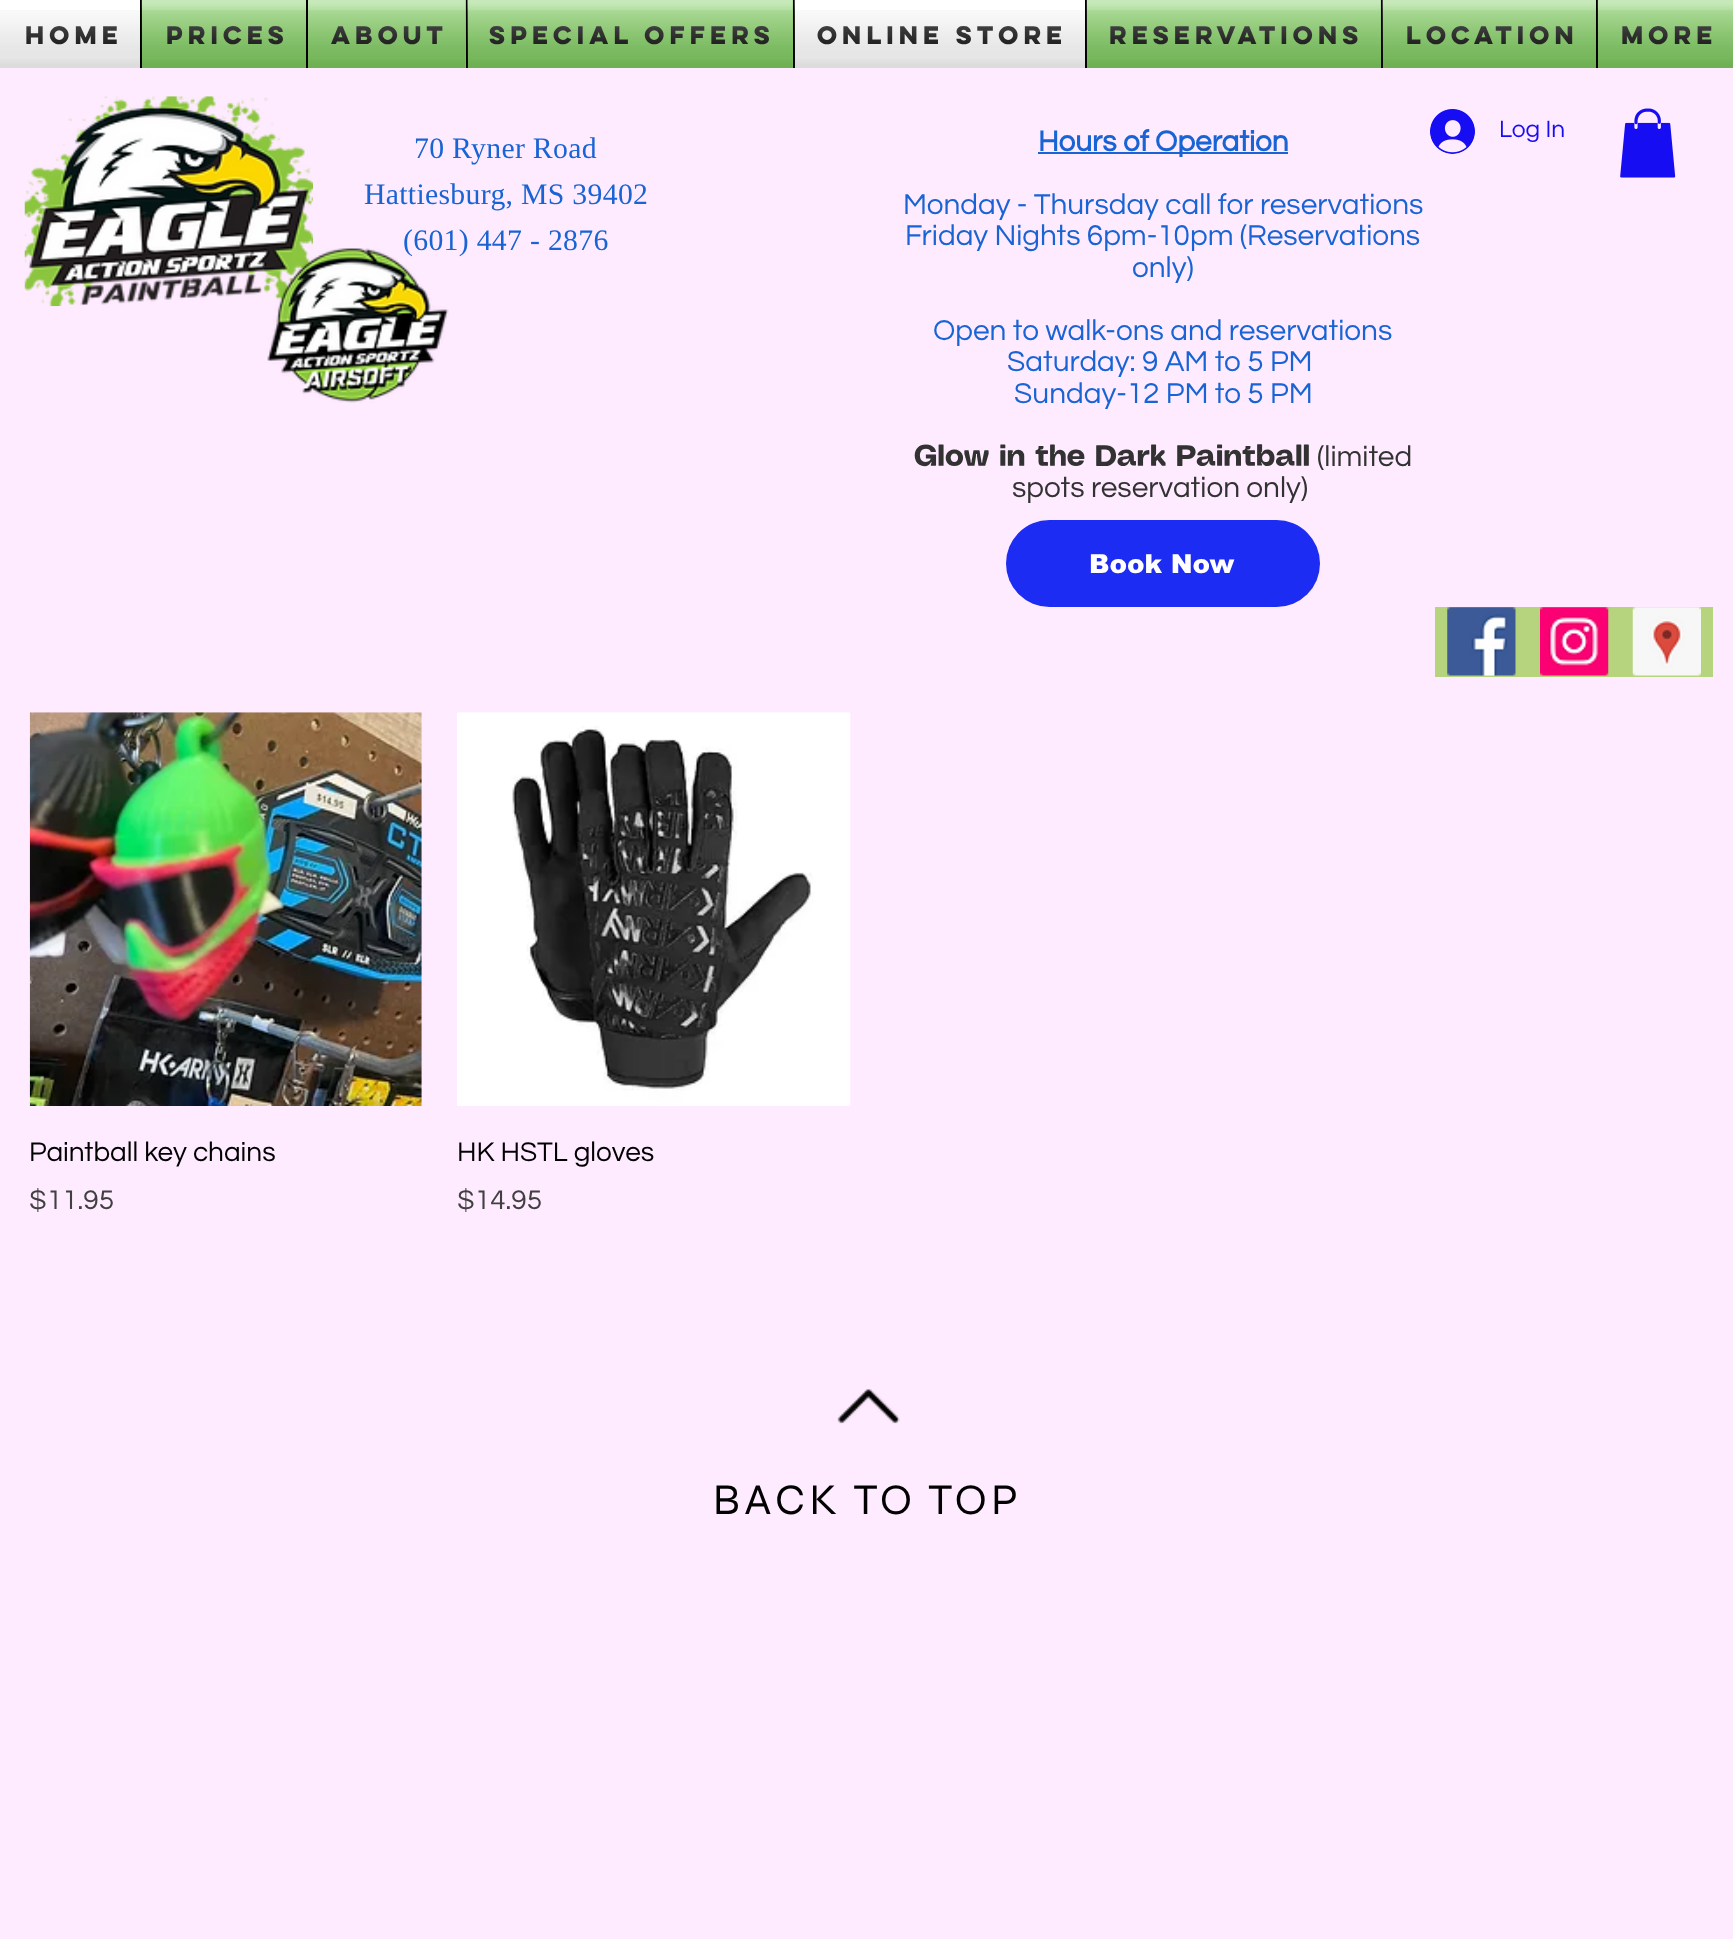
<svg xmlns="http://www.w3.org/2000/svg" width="1733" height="1939">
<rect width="100%" height="100%" fill="#ffebff"/>
<rect width="140" height="68" fill="#fff"/>
<text x="25" y="44" style="font-family:'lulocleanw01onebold';font-size:22.75px;font-weight:bold;fill:#000">HOME</text>
<image x="26" y="26" width="91" height="19" href="media/1.png"/>
<image x="0" y="10" width="140" height="58" href="media/2.png"/>
<rect x="142" width="164" height="68" fill="#7ac959"/>
<rect x="140" width="2" height="68" fill="#000"/>
<text x="166" y="44" style="font-family:'lulocleanw01onebold';font-size:22.75px;font-weight:bold;fill:#000">Prices</text>
<image x="141" y="0" width="165" height="68" href="media/3.png"/>
<image x="142" y="10" width="164" height="58" href="media/4.png"/>
<rect x="308" width="158" height="68" fill="#7ac959"/>
<rect x="306" width="2" height="68" fill="#000"/>
<text x="331" y="44" style="font-family:'lulocleanw01onebold';font-size:22.75px;font-weight:bold;fill:#000">ABOUT</text>
<image x="308" y="0" width="158" height="68" href="media/5.png"/>
<image x="308" y="10" width="158" height="58" href="media/6.png"/>
<rect x="468" width="325" height="68" fill="#7ac959"/>
<rect x="466" width="2" height="68" fill="#000"/>
<text x="489" y="44" style="font-family:'lulocleanw01onebold';font-size:22.75px;font-weight:bold;fill:#000">SPECIAL OFFERS</text>
<image x="467" y="0" width="326" height="68" href="media/7.png"/>
<image x="468" y="10" width="325" height="58" href="media/8.png"/>
<rect x="795" width="290" height="68" fill="#fff"/>
<rect x="793" width="2" height="68" fill="#000"/>
<text x="817" y="44" style="font-family:'lulocleanw01onebold';font-size:22.75px;font-weight:bold;fill:#000">Online Store</text>
<image x="794" y="0" width="268" height="68" href="media/9.png"/>
<image x="795" y="10" width="290" height="58" href="media/10.png"/>
<rect x="1087" width="294" height="68" fill="#7ac959"/>
<rect x="1085" width="2" height="68" fill="#000"/>
<text x="1109" y="44" style="font-family:'lulocleanw01onebold';font-size:22.75px;font-weight:bold;fill:#000">RESERVATIONS</text>
<image x="1086" y="0" width="295" height="68" href="media/11.png"/>
<image x="1087" y="10" width="294" height="58" href="media/12.png"/>
<rect x="1383" width="213" height="68" fill="#7ac959"/>
<rect x="1381" width="2" height="68" fill="#000"/>
<text x="1406" y="44" style="font-family:'lulocleanw01onebold';font-size:22.75px;font-weight:bold;fill:#000">LOCATION</text>
<image x="1382" y="0" width="214" height="68" href="media/13.png"/>
<image x="1383" y="10" width="213" height="58" href="media/14.png"/>
<rect x="1598" width="135" height="68" fill="#7ac959"/>
<rect x="1596" width="2" height="68" fill="#000"/>
<text x="1621" y="44" style="font-family:'lulocleanw01onebold';font-size:22.75px;font-weight:bold;fill:#000">More</text>
<image x="1597" y="0" width="136" height="68" href="media/15.png"/>
<image x="1598" y="10" width="135" height="58" href="media/16.png"/>
<image x="24" y="96" width="290" height="211" href="media/17.png"/>
<text x="414" y="158" style="font-family:Liberation Serif;font-size:29.75px;letter-spacing:0.3px;fill:#1964d4">70 Ryner Road</text>
<text x="364" y="204" style="font-family:Liberation Serif;font-size:29.75px;letter-spacing:0.3px;fill:#1964d4">Hattiesburg, MS 39402</text>
<text x="403" y="250" style="font-family:Liberation Serif;font-size:29.75px;letter-spacing:0.3px;fill:#1964d4">(601) 447 - 2876</text>
<rect x="1038" y="152" width="250" height="2" fill="#1964d4"/>
<text x="1038" y="151" style="font-family:Questrial;font-size:29.75px;font-weight:bold;fill:#1964d4">Hours of Operation</text>
<text x="903" y="214" style="font-family:Questrial;font-size:29.75px;fill:#1964d4">Monday - Thursday call for reservations</text>
<text x="905" y="245" style="font-family:Questrial;font-size:29.75px;fill:#1964d4">Friday Nights 6pm-10pm (Reservations</text>
<text x="1132" y="277" style="font-family:Questrial;font-size:29.75px;fill:#1964d4">only)</text>
<text x="933" y="340" style="font-family:Questrial;font-size:29.75px;fill:#1964d4">Open to walk-ons and reservations</text>
<text x="1007" y="371" style="font-family:Questrial;font-size:29.75px;fill:#1964d4">Saturday: 9 AM to 5 PM</text>
<text x="1014" y="403" style="font-family:Questrial;font-size:29.75px;fill:#1964d4">Sunday-12 PM to 5 PM</text>
<text x="914" y="466" style="font-family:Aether;font-size:29.75px;font-weight:bold;fill:#323232">Glow in the Dark Paintball</text>
<text x="1317" y="466" style="font-family:Questrial;font-size:29.75px;fill:#323232">(limited</text>
<text x="1012" y="497" style="font-family:Questrial;font-size:29.75px;fill:#323232">spots reservation only)</text>
<image x="1430" y="109" width="45" height="45" href="media/18.png"/>
<text x="1499" y="137" style="font-family:Questrial;font-size:24.5px;fill:#170df2">Log In</text>
<image x="1620" y="108" width="56" height="70" href="media/19.png"/>
<image x="267" y="248" width="182" height="155" href="media/20.png"/>
<rect x="1006" y="520" width="314" height="87" rx="43.5" fill="#1d2cf3"/>
<text x="1089" y="573" style="font-family:arial;font-size:26.25px;font-weight:900;fill:#fff">Book Now</text>
<rect x="1435" y="607" width="278" height="70" fill="#b6d47e"/>
<image x="1447" y="607" width="69" height="69" href="media/21.png"/>
<image x="1540" y="607" width="69" height="69" href="media/22.png"/>
<image x="1632" y="607" width="69" height="69" href="media/23.png"/>
<image x="29" y="712" width="393" height="394" href="media/24.png"/>
<text x="29" y="1161" style="font-family:Questrial;font-size:28px;fill:#000">Paintball key chains</text>
<text x="29" y="1209" style="font-family:Questrial;font-size:28px;fill:#404040">$11.95</text>
<image x="457" y="712" width="394" height="394" href="media/25.png"/>
<text x="457" y="1161" style="font-family:Questrial;font-size:28px;fill:#000">HK HSTL gloves</text>
<text x="457" y="1209" style="font-family:Questrial;font-size:28px;fill:#404040">$14.95</text>
<image x="837" y="1389" width="63" height="35" href="media/26.png"/>
<text x="713" y="1514" style="font-family:Syne;font-size:43.75px;letter-spacing:4.4px;fill:#000">BACK TO TOP</text>
</svg>
